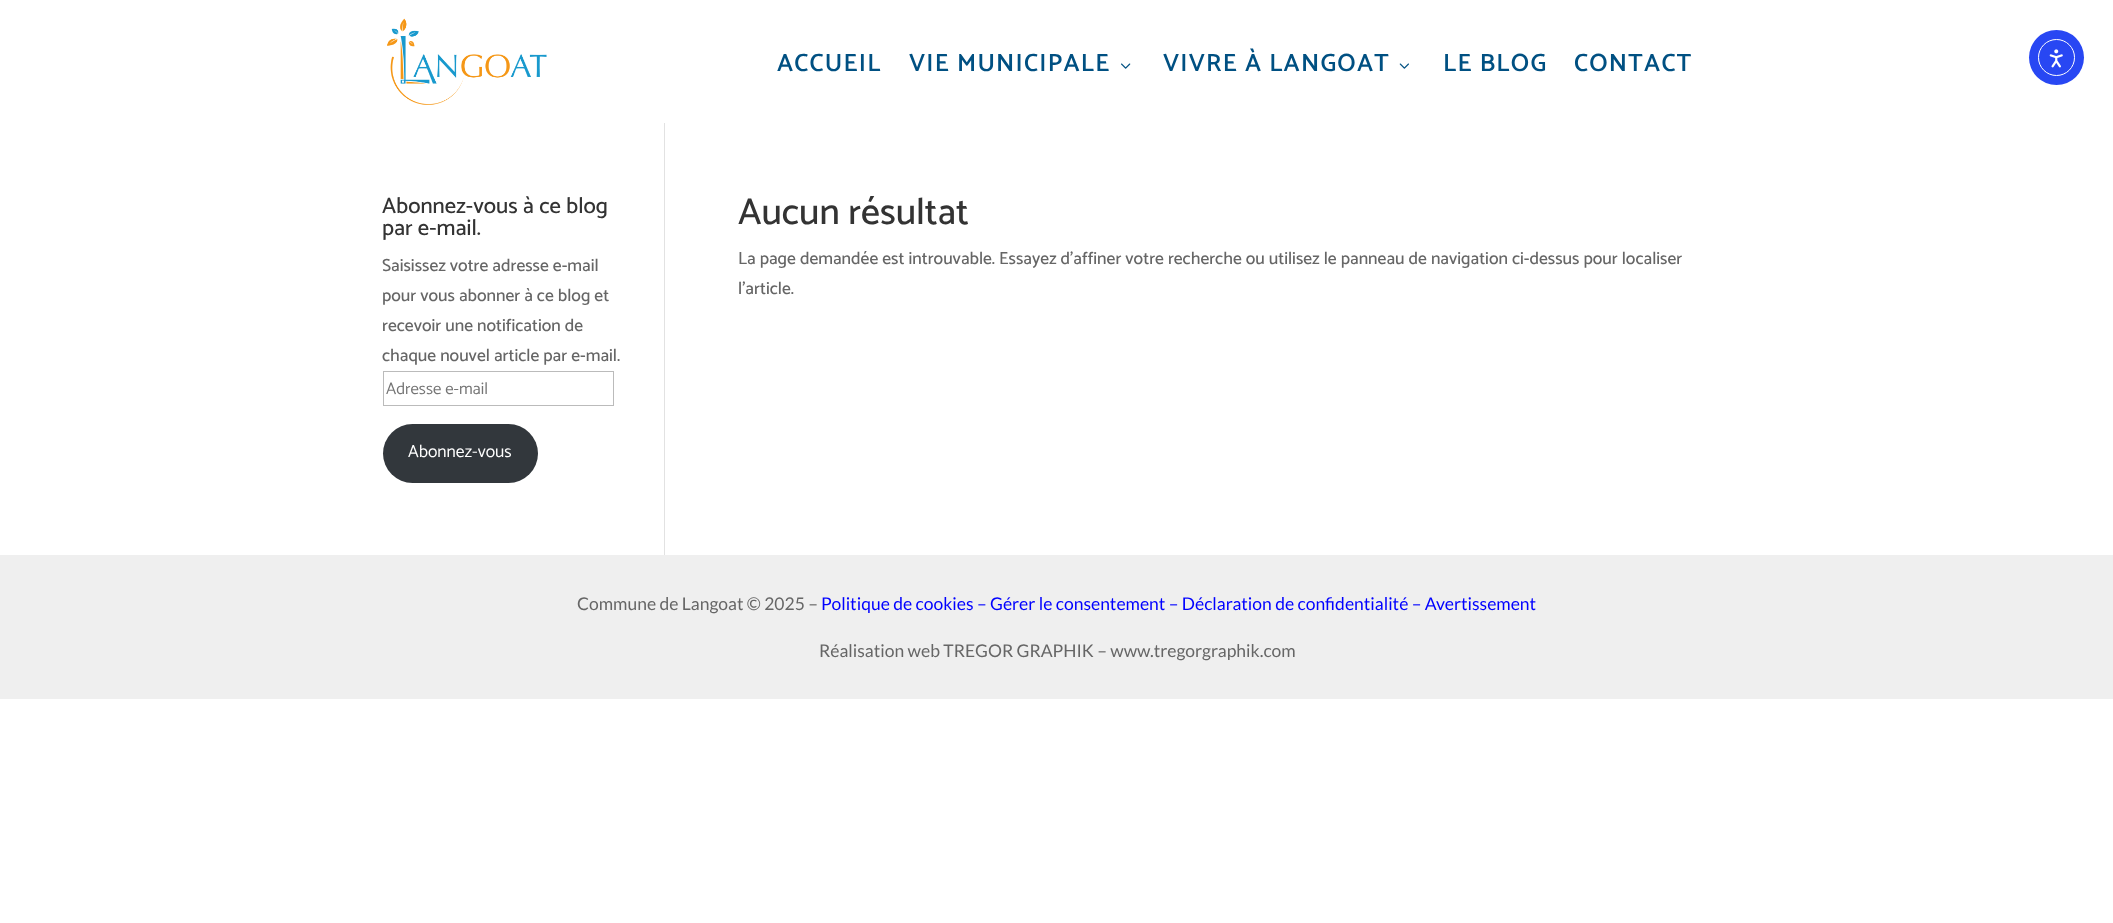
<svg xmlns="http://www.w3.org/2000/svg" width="2113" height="923">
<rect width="100%" height="100%" fill="#fff"/>
<image x="387" y="18" width="160" height="87" href="media/1.png"/>
<text x="777" y="71" style="font-family:Catamaran;font-size:25px;font-weight:600;letter-spacing:1.25px;fill:#005082">ACCUEIL</text>
<text x="909" y="71" style="font-family:Catamaran;font-size:25px;font-weight:600;letter-spacing:1.25px;fill:#005082">VIE MUNICIPALE</text>
<image x="1121" y="63" width="10" height="6" href="media/2.png"/>
<text x="1163" y="71" style="font-family:Catamaran;font-size:25px;font-weight:600;letter-spacing:1.25px;fill:#005082">VIVRE À LANGOAT</text>
<image x="1399" y="63" width="10" height="6" href="media/3.png"/>
<text x="1443" y="71" style="font-family:Catamaran;font-size:25px;font-weight:600;letter-spacing:1.25px;fill:#005082">LE BLOG</text>
<text x="1574" y="71" style="font-family:Catamaran;font-size:25px;font-weight:600;letter-spacing:1.25px;fill:#005082">CONTACT</text>
<rect x="664" y="123" width="1" height="432" fill="#e2e2e2"/>
<text x="382" y="213" style="font-family:Catamaran;font-size:22.5px;font-weight:500;fill:#333">Abonnez-vous à ce blog</text>
<text x="382" y="235" style="font-family:Catamaran;font-size:22.5px;font-weight:500;fill:#333">par e-mail.</text>
<text x="382" y="271" style="font-family:Catamaran;font-size:17.5px;font-weight:500;fill:#666">Saisissez votre adresse e-mail</text>
<text x="382" y="301" style="font-family:Catamaran;font-size:17.5px;font-weight:500;fill:#666">pour vous abonner à ce blog et</text>
<text x="382" y="331" style="font-family:Catamaran;font-size:17.5px;font-weight:500;fill:#666">recevoir une notification de</text>
<text x="382" y="361" style="font-family:Catamaran;font-size:17.5px;font-weight:500;fill:#666">chaque nouvel article par e-mail.</text>
<rect x="383.5" y="371.5" width="230" height="34" fill="none" stroke="#bbb"/>
<text x="386" y="394" style="font-family:Catamaran;font-size:16.75px;fill:#757575">Adresse e-mail</text>
<rect x="383" y="424" width="155" height="59" rx="29.5" fill="#32373c"/>
<text x="408" y="457" style="font-family:Catamaran;font-size:17.5px;fill:#fff">Abonnez-vous</text>
<text x="738" y="224" style="font-family:Catamaran;font-size:37.5px;font-weight:500;fill:#333">Aucun résultat</text>
<text x="738" y="264" style="font-family:Catamaran;font-size:17.5px;font-weight:500;fill:#666">La page demandée est introuvable. Essayez d'affiner votre recherche ou utilisez le panneau de navigation ci-dessus pour localiser</text>
<text x="738" y="294" style="font-family:Catamaran;font-size:17.5px;font-weight:500;fill:#666">l'article.</text>
<rect y="555" width="2113" height="144" fill="#efefef"/>
<text x="577" y="610" style="font-family:Lato;font-size:17.5px;fill:#666">Commune de Langoat © 2025 –</text>
<text x="821" y="610" style="font-family:Lato;font-size:17.5px;fill:#00f">Politique de cookies – Gérer le consentement – Déclaration de confidentialité – Avertissement</text>
<text x="819" y="657" style="font-family:Lato;font-size:17.5px;fill:#666">Réalisation web TREGOR GRAPHIK – www.tregorgraphik.com</text>
<circle cx="2056.5" cy="57.5" r="27.5" fill="#2847f3"/>
<circle cx="2056.5" cy="57.5" r="18" fill="none" stroke="#fff"/>
<image x="2049" y="49" width="14" height="19" href="media/4.png"/>
</svg>
